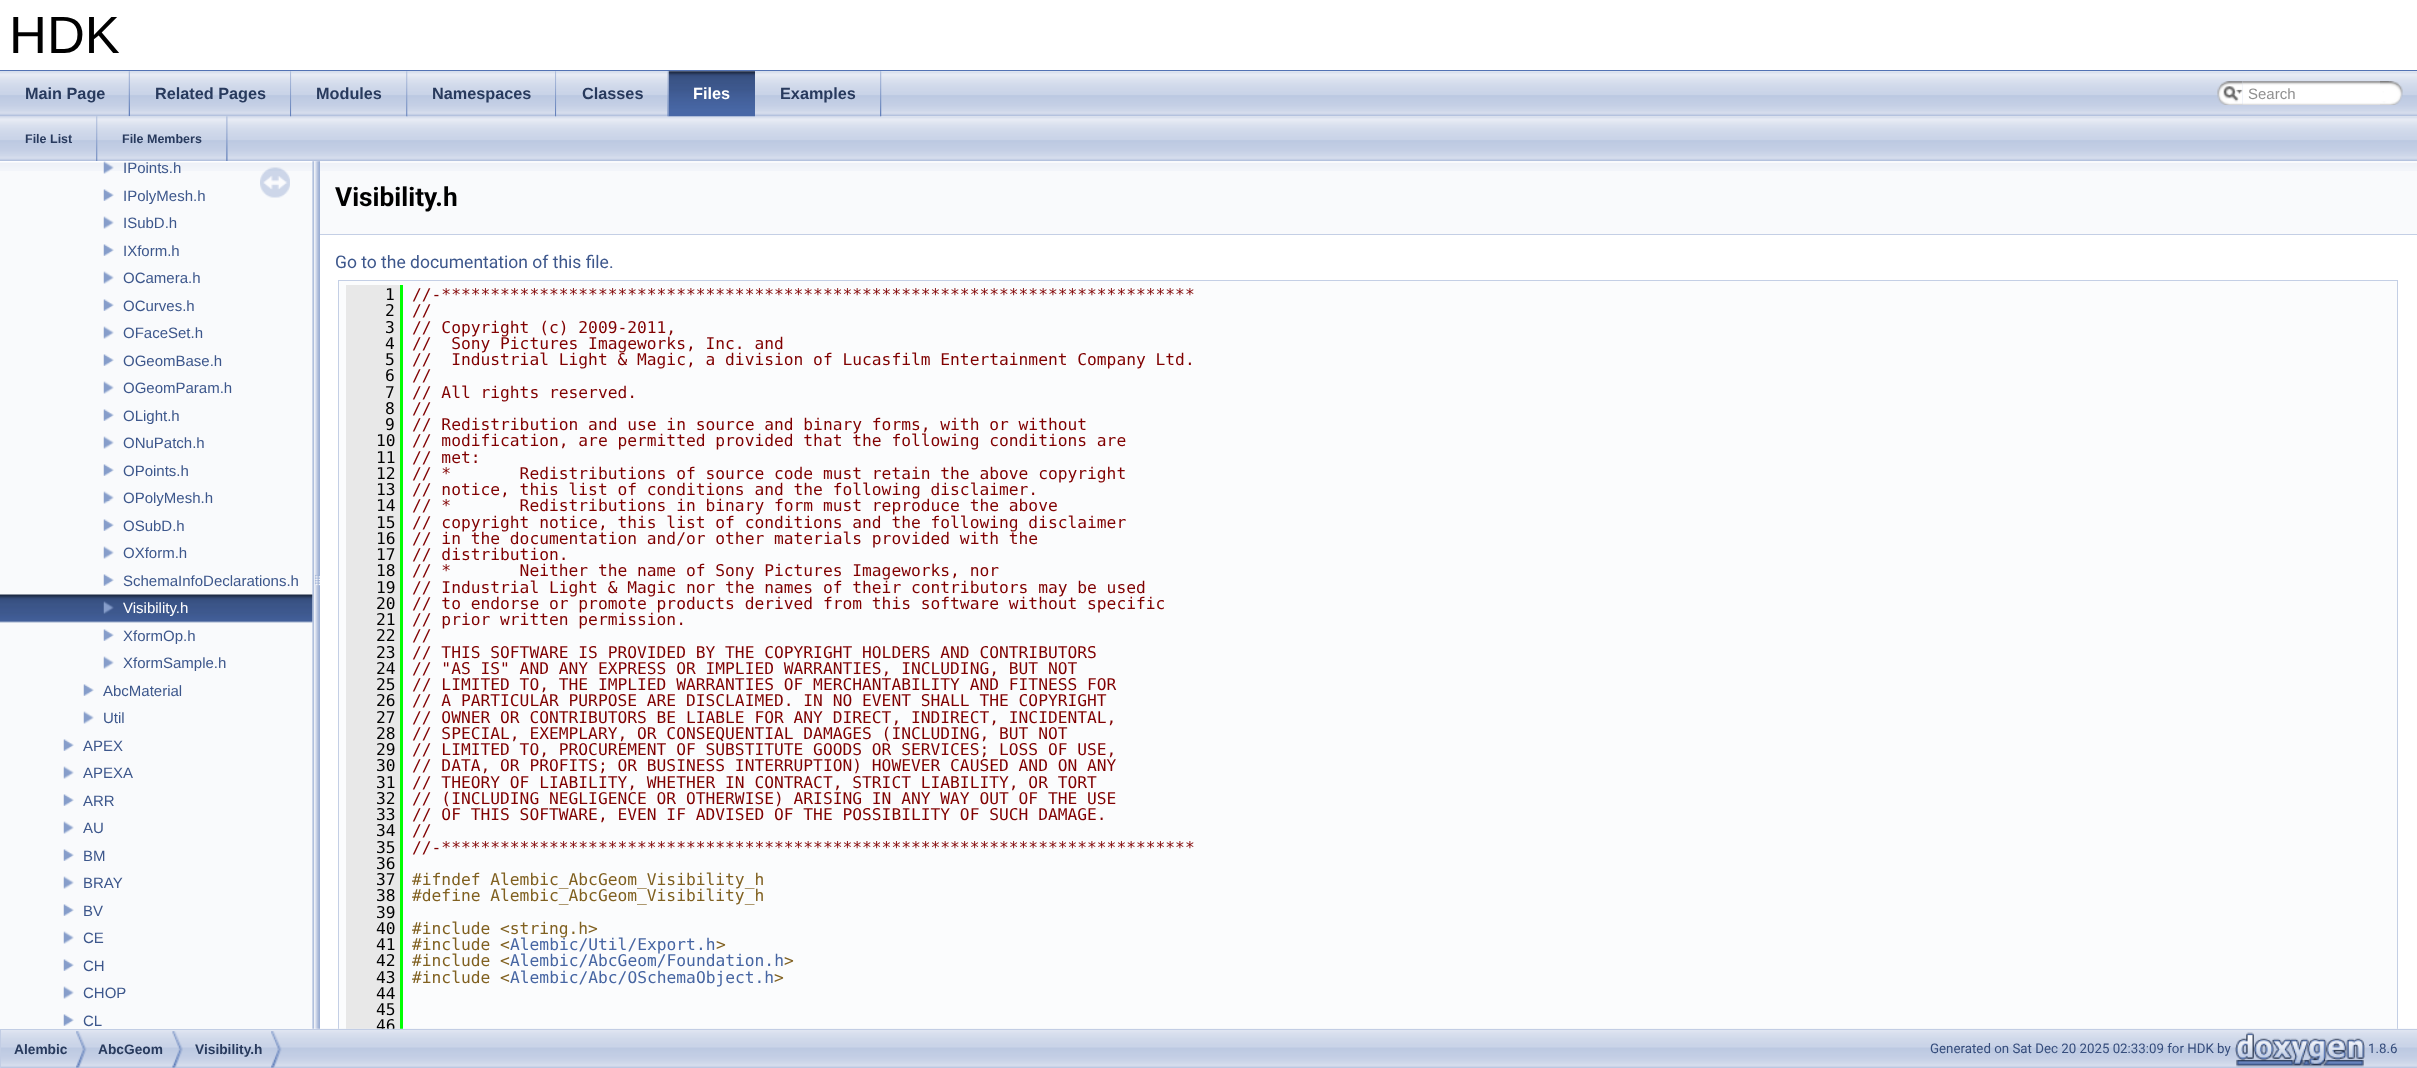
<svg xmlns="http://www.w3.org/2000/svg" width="2417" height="1068">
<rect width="100%" height="100%" fill="#fff"/>
<rect y="70" width="2417" height="1" fill="#5373b4"/>
<text x="9" y="53" style="font-family:Liberation Sans;font-size:52.5px;fill:#000">HDK</text>
<image x="0" y="71" width="2417" height="46" href="media/1.png"/>
<image x="0" y="116" width="2417" height="46" href="media/18.png"/>
<image x="0" y="71" width="130" height="46" href="media/2.png"/>
<image x="128" y="71" width="2" height="46" href="media/3.png"/>
<text x="25" y="99" style="font-family:Liberation Sans;font-size:16.25px;font-weight:bold;fill:#283a5d">Main Page</text>
<image x="130" y="71" width="161" height="46" href="media/4.png"/>
<image x="290" y="71" width="2" height="46" href="media/5.png"/>
<text x="155" y="99" style="font-family:Liberation Sans;font-size:16.25px;font-weight:bold;fill:#283a5d">Related Pages</text>
<image x="291" y="71" width="117" height="46" href="media/6.png"/>
<image x="406" y="71" width="2" height="46" href="media/7.png"/>
<text x="316" y="99" style="font-family:Liberation Sans;font-size:16.25px;font-weight:bold;fill:#283a5d">Modules</text>
<image x="407" y="71" width="149" height="46" href="media/8.png"/>
<image x="555" y="71" width="2" height="46" href="media/5.png"/>
<text x="432" y="99" style="font-family:Liberation Sans;font-size:16.25px;font-weight:bold;fill:#283a5d">Namespaces</text>
<image x="556" y="71" width="113" height="46" href="media/9.png"/>
<image x="667" y="71" width="2" height="46" href="media/10.png"/>
<text x="582" y="99" style="font-family:Liberation Sans;font-size:16.25px;font-weight:bold;fill:#283a5d">Classes</text>
<image x="668" y="71" width="87" height="46" href="media/11.png"/>
<image x="668" y="71" width="87" height="46" href="media/12.png"/>
<text x="693" y="99" style="font-family:Liberation Sans;font-size:16.25px;font-weight:bold;fill:#fff">Files</text>
<image x="755" y="71" width="126" height="46" href="media/13.png"/>
<image x="880" y="71" width="2" height="46" href="media/5.png"/>
<text x="780" y="99" style="font-family:Liberation Sans;font-size:16.25px;font-weight:bold;fill:#283a5d">Examples</text>
<image x="2217" y="81" width="26" height="24" href="media/14.png"/>
<image x="2223" y="86" width="20" height="16" href="media/15.png"/>
<image x="2242" y="81" width="147" height="24" href="media/16.png"/>
<text x="2248" y="99" style="font-family:Liberation Sans;font-size:15px;fill:#909090">Search</text>
<image x="2380" y="81" width="23" height="24" href="media/17.png"/>
<image x="96" y="116" width="2" height="45" href="media/19.png"/>
<text x="25" y="143" style="font-family:Liberation Sans;font-size:12.5px;font-weight:bold;fill:#283a5d">File List</text>
<image x="97" y="116" width="131" height="45" href="media/20.png"/>
<image x="226" y="116" width="2" height="45" href="media/21.png"/>
<text x="122" y="143" style="font-family:Liberation Sans;font-size:12.5px;font-weight:bold;fill:#283a5d">File Members</text>
<rect x="339" y="281" width="2058" height="748" fill="#fbfcfd"/>
<rect x="338.5" y="280.5" width="2059" height="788" fill="none" stroke="#c4cfe5"/>
<rect x="346" y="285" width="54" height="744" fill="#e8e8e8"/>
<rect x="400" y="285" width="3" height="744" fill="#0f0"/>
<text x="376" y="1031" style="font-family:DejaVu Sans Mono;font-size:16.25px;fill:#000">46</text>
<image x="1" y="1028" width="2416" height="40" href="media/32.png"/>
<rect y="161" width="313" height="868" fill="#f9fafc"/>
<image x="0" y="161" width="313" height="10" href="media/22.png"/>
<image x="103" y="161" width="11" height="13" href="media/23.png"/>
<text x="123" y="173" style="font-family:Liberation Sans;font-size:15px;fill:#3d578c">IPoints.h</text>
<image x="103" y="189" width="11" height="12" href="media/24.png"/>
<text x="123" y="201" style="font-family:Liberation Sans;font-size:15px;fill:#3d578c">IPolyMesh.h</text>
<image x="103" y="216" width="11" height="13" href="media/25.png"/>
<text x="123" y="228" style="font-family:Liberation Sans;font-size:15px;fill:#3d578c">ISubD.h</text>
<image x="103" y="244" width="11" height="12" href="media/24.png"/>
<text x="123" y="256" style="font-family:Liberation Sans;font-size:15px;fill:#3d578c">IXform.h</text>
<image x="103" y="271" width="11" height="13" href="media/25.png"/>
<text x="123" y="283" style="font-family:Liberation Sans;font-size:15px;fill:#3d578c">OCamera.h</text>
<image x="103" y="299" width="11" height="12" href="media/24.png"/>
<text x="123" y="311" style="font-family:Liberation Sans;font-size:15px;fill:#3d578c">OCurves.h</text>
<image x="103" y="326" width="11" height="13" href="media/25.png"/>
<text x="123" y="338" style="font-family:Liberation Sans;font-size:15px;fill:#3d578c">OFaceSet.h</text>
<image x="103" y="354" width="11" height="12" href="media/24.png"/>
<text x="123" y="366" style="font-family:Liberation Sans;font-size:15px;fill:#3d578c">OGeomBase.h</text>
<image x="103" y="381" width="11" height="13" href="media/25.png"/>
<text x="123" y="393" style="font-family:Liberation Sans;font-size:15px;fill:#3d578c">OGeomParam.h</text>
<image x="103" y="409" width="11" height="12" href="media/24.png"/>
<text x="123" y="421" style="font-family:Liberation Sans;font-size:15px;fill:#3d578c">OLight.h</text>
<image x="103" y="436" width="11" height="13" href="media/25.png"/>
<text x="123" y="448" style="font-family:Liberation Sans;font-size:15px;fill:#3d578c">ONuPatch.h</text>
<image x="103" y="464" width="11" height="12" href="media/24.png"/>
<text x="123" y="476" style="font-family:Liberation Sans;font-size:15px;fill:#3d578c">OPoints.h</text>
<image x="103" y="491" width="11" height="13" href="media/26.png"/>
<text x="123" y="503" style="font-family:Liberation Sans;font-size:15px;fill:#3d578c">OPolyMesh.h</text>
<image x="103" y="519" width="11" height="12" href="media/24.png"/>
<text x="123" y="531" style="font-family:Liberation Sans;font-size:15px;fill:#3d578c">OSubD.h</text>
<image x="103" y="546" width="11" height="13" href="media/25.png"/>
<text x="123" y="558" style="font-family:Liberation Sans;font-size:15px;fill:#3d578c">OXform.h</text>
<image x="103" y="574" width="11" height="12" href="media/24.png"/>
<text x="123" y="586" style="font-family:Liberation Sans;font-size:15px;fill:#3d578c">SchemaInfoDeclarations.h</text>
<image x="0" y="594" width="313" height="29" href="media/27.png"/>
<image x="103" y="601" width="11" height="13" href="media/28.png"/>
<text x="123" y="613" style="font-family:Liberation Sans;font-size:15px;fill:#fff">Visibility.h</text>
<image x="103" y="629" width="11" height="12" href="media/24.png"/>
<text x="123" y="641" style="font-family:Liberation Sans;font-size:15px;fill:#3d578c">XformOp.h</text>
<image x="103" y="656" width="11" height="13" href="media/25.png"/>
<text x="123" y="668" style="font-family:Liberation Sans;font-size:15px;fill:#3d578c">XformSample.h</text>
<image x="83" y="684" width="11" height="12" href="media/24.png"/>
<text x="103" y="696" style="font-family:Liberation Sans;font-size:15px;fill:#3d578c">AbcMaterial</text>
<image x="83" y="711" width="11" height="13" href="media/25.png"/>
<text x="103" y="723" style="font-family:Liberation Sans;font-size:15px;fill:#3d578c">Util</text>
<image x="63" y="739" width="11" height="12" href="media/24.png"/>
<text x="83" y="751" style="font-family:Liberation Sans;font-size:15px;fill:#3d578c">APEX</text>
<image x="63" y="766" width="11" height="13" href="media/25.png"/>
<text x="83" y="778" style="font-family:Liberation Sans;font-size:15px;fill:#3d578c">APEXA</text>
<image x="63" y="794" width="11" height="12" href="media/24.png"/>
<text x="83" y="806" style="font-family:Liberation Sans;font-size:15px;fill:#3d578c">ARR</text>
<image x="63" y="821" width="11" height="13" href="media/25.png"/>
<text x="83" y="833" style="font-family:Liberation Sans;font-size:15px;fill:#3d578c">AU</text>
<image x="63" y="849" width="11" height="12" href="media/24.png"/>
<text x="83" y="861" style="font-family:Liberation Sans;font-size:15px;fill:#3d578c">BM</text>
<image x="63" y="876" width="11" height="13" href="media/25.png"/>
<text x="83" y="888" style="font-family:Liberation Sans;font-size:15px;fill:#3d578c">BRAY</text>
<image x="63" y="904" width="11" height="12" href="media/24.png"/>
<text x="83" y="916" style="font-family:Liberation Sans;font-size:15px;fill:#3d578c">BV</text>
<image x="63" y="931" width="11" height="13" href="media/25.png"/>
<text x="83" y="943" style="font-family:Liberation Sans;font-size:15px;fill:#3d578c">CE</text>
<image x="63" y="959" width="11" height="12" href="media/24.png"/>
<text x="83" y="971" style="font-family:Liberation Sans;font-size:15px;fill:#3d578c">CH</text>
<image x="63" y="986" width="11" height="13" href="media/25.png"/>
<text x="83" y="998" style="font-family:Liberation Sans;font-size:15px;fill:#3d578c">CHOP</text>
<image x="63" y="1014" width="11" height="12" href="media/24.png"/>
<text x="83" y="1026" style="font-family:Liberation Sans;font-size:15px;fill:#3d578c">CL</text>
<image x="260" y="167" width="30" height="31" href="media/29.png"/>
<image x="312" y="161" width="8" height="868" href="media/30.png"/>
<rect x="320" y="161" width="2097" height="73" fill="#f9fafc"/>
<image x="320" y="163" width="2097" height="8" href="media/31.png"/>
<rect x="320" y="234" width="2097" height="1" fill="#c4cfe5"/>
<text x="335" y="206" style="font-family:Roboto;font-size:26.25px;font-weight:bold;fill:#000">Visibility.h</text>
<text x="335" y="268" style="font-family:Roboto;font-size:17.5px;fill:#3d578c">Go to the documentation of this file.</text>
<text x="385" y="300" style="font-family:DejaVu Sans Mono;font-size:16.25px;fill:#000">1</text>
<text x="412" y="300" style="font-family:DejaVu Sans Mono;font-size:16.25px;fill:#800000">//-*****************************************************************************</text>
<text x="385" y="316" style="font-family:DejaVu Sans Mono;font-size:16.25px;fill:#000">2</text>
<text x="412" y="316" style="font-family:DejaVu Sans Mono;font-size:16.25px;fill:#800000">//</text>
<text x="385" y="333" style="font-family:DejaVu Sans Mono;font-size:16.25px;fill:#000">3</text>
<text x="412" y="333" style="font-family:DejaVu Sans Mono;font-size:16.25px;fill:#800000">// Copyright (c) 2009-2011,</text>
<text x="385" y="349" style="font-family:DejaVu Sans Mono;font-size:16.25px;fill:#000">4</text>
<text x="412" y="349" style="font-family:DejaVu Sans Mono;font-size:16.25px;fill:#800000" xml:space="preserve">//  Sony Pictures Imageworks, Inc. and</text>
<text x="385" y="365" style="font-family:DejaVu Sans Mono;font-size:16.25px;fill:#000">5</text>
<text x="412" y="365" style="font-family:DejaVu Sans Mono;font-size:16.25px;fill:#800000" xml:space="preserve">//  Industrial Light &amp; Magic, a division of Lucasfilm Entertainment Company Ltd.</text>
<text x="385" y="381" style="font-family:DejaVu Sans Mono;font-size:16.25px;fill:#000">6</text>
<text x="412" y="381" style="font-family:DejaVu Sans Mono;font-size:16.25px;fill:#800000">//</text>
<text x="385" y="398" style="font-family:DejaVu Sans Mono;font-size:16.25px;fill:#000">7</text>
<text x="412" y="398" style="font-family:DejaVu Sans Mono;font-size:16.25px;fill:#800000">// All rights reserved.</text>
<text x="385" y="414" style="font-family:DejaVu Sans Mono;font-size:16.25px;fill:#000">8</text>
<text x="412" y="414" style="font-family:DejaVu Sans Mono;font-size:16.25px;fill:#800000">//</text>
<text x="385" y="430" style="font-family:DejaVu Sans Mono;font-size:16.25px;fill:#000">9</text>
<text x="412" y="430" style="font-family:DejaVu Sans Mono;font-size:16.25px;fill:#800000">// Redistribution and use in source and binary forms, with or without</text>
<text x="376" y="446" style="font-family:DejaVu Sans Mono;font-size:16.25px;fill:#000">10</text>
<text x="412" y="446" style="font-family:DejaVu Sans Mono;font-size:16.25px;fill:#800000">// modification, are permitted provided that the following conditions are</text>
<text x="376" y="463" style="font-family:DejaVu Sans Mono;font-size:16.25px;fill:#000">11</text>
<text x="412" y="463" style="font-family:DejaVu Sans Mono;font-size:16.25px;fill:#800000">// met:</text>
<text x="376" y="479" style="font-family:DejaVu Sans Mono;font-size:16.25px;fill:#000">12</text>
<text x="412" y="479" style="font-family:DejaVu Sans Mono;font-size:16.25px;fill:#800000" xml:space="preserve">// *       Redistributions of source code must retain the above copyright</text>
<text x="376" y="495" style="font-family:DejaVu Sans Mono;font-size:16.25px;fill:#000">13</text>
<text x="412" y="495" style="font-family:DejaVu Sans Mono;font-size:16.25px;fill:#800000">// notice, this list of conditions and the following disclaimer.</text>
<text x="376" y="511" style="font-family:DejaVu Sans Mono;font-size:16.25px;fill:#000">14</text>
<text x="412" y="511" style="font-family:DejaVu Sans Mono;font-size:16.25px;fill:#800000" xml:space="preserve">// *       Redistributions in binary form must reproduce the above</text>
<text x="376" y="528" style="font-family:DejaVu Sans Mono;font-size:16.25px;fill:#000">15</text>
<text x="412" y="528" style="font-family:DejaVu Sans Mono;font-size:16.25px;fill:#800000">// copyright notice, this list of conditions and the following disclaimer</text>
<text x="376" y="544" style="font-family:DejaVu Sans Mono;font-size:16.25px;fill:#000">16</text>
<text x="412" y="544" style="font-family:DejaVu Sans Mono;font-size:16.25px;fill:#800000">// in the documentation and/or other materials provided with the</text>
<text x="376" y="560" style="font-family:DejaVu Sans Mono;font-size:16.25px;fill:#000">17</text>
<text x="412" y="560" style="font-family:DejaVu Sans Mono;font-size:16.25px;fill:#800000">// distribution.</text>
<text x="376" y="576" style="font-family:DejaVu Sans Mono;font-size:16.25px;fill:#000">18</text>
<text x="412" y="576" style="font-family:DejaVu Sans Mono;font-size:16.25px;fill:#800000" xml:space="preserve">// *       Neither the name of Sony Pictures Imageworks, nor</text>
<text x="376" y="593" style="font-family:DejaVu Sans Mono;font-size:16.25px;fill:#000">19</text>
<text x="412" y="593" style="font-family:DejaVu Sans Mono;font-size:16.25px;fill:#800000">// Industrial Light &amp; Magic nor the names of their contributors may be used</text>
<text x="376" y="609" style="font-family:DejaVu Sans Mono;font-size:16.25px;fill:#000">20</text>
<text x="412" y="609" style="font-family:DejaVu Sans Mono;font-size:16.25px;fill:#800000">// to endorse or promote products derived from this software without specific</text>
<text x="376" y="625" style="font-family:DejaVu Sans Mono;font-size:16.25px;fill:#000">21</text>
<text x="412" y="625" style="font-family:DejaVu Sans Mono;font-size:16.25px;fill:#800000">// prior written permission.</text>
<text x="376" y="641" style="font-family:DejaVu Sans Mono;font-size:16.25px;fill:#000">22</text>
<text x="412" y="641" style="font-family:DejaVu Sans Mono;font-size:16.25px;fill:#800000">//</text>
<text x="376" y="658" style="font-family:DejaVu Sans Mono;font-size:16.25px;fill:#000">23</text>
<text x="412" y="658" style="font-family:DejaVu Sans Mono;font-size:16.25px;fill:#800000">// THIS SOFTWARE IS PROVIDED BY THE COPYRIGHT HOLDERS AND CONTRIBUTORS</text>
<text x="376" y="674" style="font-family:DejaVu Sans Mono;font-size:16.25px;fill:#000">24</text>
<text x="412" y="674" style="font-family:DejaVu Sans Mono;font-size:16.25px;fill:#800000">// "AS IS" AND ANY EXPRESS OR IMPLIED WARRANTIES, INCLUDING, BUT NOT</text>
<text x="376" y="690" style="font-family:DejaVu Sans Mono;font-size:16.25px;fill:#000">25</text>
<text x="412" y="690" style="font-family:DejaVu Sans Mono;font-size:16.25px;fill:#800000">// LIMITED TO, THE IMPLIED WARRANTIES OF MERCHANTABILITY AND FITNESS FOR</text>
<text x="376" y="706" style="font-family:DejaVu Sans Mono;font-size:16.25px;fill:#000">26</text>
<text x="412" y="706" style="font-family:DejaVu Sans Mono;font-size:16.25px;fill:#800000">// A PARTICULAR PURPOSE ARE DISCLAIMED. IN NO EVENT SHALL THE COPYRIGHT</text>
<text x="376" y="723" style="font-family:DejaVu Sans Mono;font-size:16.25px;fill:#000">27</text>
<text x="412" y="723" style="font-family:DejaVu Sans Mono;font-size:16.25px;fill:#800000">// OWNER OR CONTRIBUTORS BE LIABLE FOR ANY DIRECT, INDIRECT, INCIDENTAL,</text>
<text x="376" y="739" style="font-family:DejaVu Sans Mono;font-size:16.25px;fill:#000">28</text>
<text x="412" y="739" style="font-family:DejaVu Sans Mono;font-size:16.25px;fill:#800000">// SPECIAL, EXEMPLARY, OR CONSEQUENTIAL DAMAGES (INCLUDING, BUT NOT</text>
<text x="376" y="755" style="font-family:DejaVu Sans Mono;font-size:16.25px;fill:#000">29</text>
<text x="412" y="755" style="font-family:DejaVu Sans Mono;font-size:16.25px;fill:#800000">// LIMITED TO, PROCUREMENT OF SUBSTITUTE GOODS OR SERVICES; LOSS OF USE,</text>
<text x="376" y="771" style="font-family:DejaVu Sans Mono;font-size:16.25px;fill:#000">30</text>
<text x="412" y="771" style="font-family:DejaVu Sans Mono;font-size:16.25px;fill:#800000">// DATA, OR PROFITS; OR BUSINESS INTERRUPTION) HOWEVER CAUSED AND ON ANY</text>
<text x="376" y="788" style="font-family:DejaVu Sans Mono;font-size:16.25px;fill:#000">31</text>
<text x="412" y="788" style="font-family:DejaVu Sans Mono;font-size:16.25px;fill:#800000">// THEORY OF LIABILITY, WHETHER IN CONTRACT, STRICT LIABILITY, OR TORT</text>
<text x="376" y="804" style="font-family:DejaVu Sans Mono;font-size:16.25px;fill:#000">32</text>
<text x="412" y="804" style="font-family:DejaVu Sans Mono;font-size:16.25px;fill:#800000">// (INCLUDING NEGLIGENCE OR OTHERWISE) ARISING IN ANY WAY OUT OF THE USE</text>
<text x="376" y="820" style="font-family:DejaVu Sans Mono;font-size:16.25px;fill:#000">33</text>
<text x="412" y="820" style="font-family:DejaVu Sans Mono;font-size:16.25px;fill:#800000">// OF THIS SOFTWARE, EVEN IF ADVISED OF THE POSSIBILITY OF SUCH DAMAGE.</text>
<text x="376" y="836" style="font-family:DejaVu Sans Mono;font-size:16.25px;fill:#000">34</text>
<text x="412" y="836" style="font-family:DejaVu Sans Mono;font-size:16.25px;fill:#800000">//</text>
<text x="376" y="853" style="font-family:DejaVu Sans Mono;font-size:16.25px;fill:#000">35</text>
<text x="412" y="853" style="font-family:DejaVu Sans Mono;font-size:16.25px;fill:#800000">//-*****************************************************************************</text>
<text x="376" y="869" style="font-family:DejaVu Sans Mono;font-size:16.25px;fill:#000">36</text>
<text x="376" y="885" style="font-family:DejaVu Sans Mono;font-size:16.25px;fill:#000">37</text>
<text x="412" y="885" style="font-family:DejaVu Sans Mono;font-size:16.25px;fill:#806020">#ifndef Alembic_AbcGeom_Visibility_h</text>
<text x="376" y="901" style="font-family:DejaVu Sans Mono;font-size:16.25px;fill:#000">38</text>
<text x="412" y="901" style="font-family:DejaVu Sans Mono;font-size:16.25px;fill:#806020">#define Alembic_AbcGeom_Visibility_h</text>
<text x="376" y="918" style="font-family:DejaVu Sans Mono;font-size:16.25px;fill:#000">39</text>
<text x="376" y="934" style="font-family:DejaVu Sans Mono;font-size:16.25px;fill:#000">40</text>
<text x="412" y="934" style="font-family:DejaVu Sans Mono;font-size:16.25px;fill:#806020">#include &lt;string.h&gt;</text>
<text x="376" y="950" style="font-family:DejaVu Sans Mono;font-size:16.25px;fill:#000">41</text>
<text x="412" y="950" style="font-family:DejaVu Sans Mono;font-size:16.25px;fill:#806020">#include &lt;</text>
<text x="510" y="950" style="font-family:DejaVu Sans Mono;font-size:16.25px;fill:#4665a2">Alembic/Util/Export.h</text>
<text x="716" y="950" style="font-family:DejaVu Sans Mono;font-size:16.25px;fill:#806020">&gt;</text>
<text x="376" y="966" style="font-family:DejaVu Sans Mono;font-size:16.25px;fill:#000">42</text>
<text x="412" y="966" style="font-family:DejaVu Sans Mono;font-size:16.25px;fill:#806020">#include &lt;</text>
<text x="510" y="966" style="font-family:DejaVu Sans Mono;font-size:16.25px;fill:#4665a2">Alembic/AbcGeom/Foundation.h</text>
<text x="784" y="966" style="font-family:DejaVu Sans Mono;font-size:16.25px;fill:#806020">&gt;</text>
<text x="376" y="983" style="font-family:DejaVu Sans Mono;font-size:16.25px;fill:#000">43</text>
<text x="412" y="983" style="font-family:DejaVu Sans Mono;font-size:16.25px;fill:#806020">#include &lt;</text>
<text x="510" y="983" style="font-family:DejaVu Sans Mono;font-size:16.25px;fill:#4665a2">Alembic/Abc/OSchemaObject.h</text>
<text x="774" y="983" style="font-family:DejaVu Sans Mono;font-size:16.25px;fill:#806020">&gt;</text>
<text x="376" y="999" style="font-family:DejaVu Sans Mono;font-size:16.25px;fill:#000">44</text>
<text x="376" y="1015" style="font-family:DejaVu Sans Mono;font-size:16.25px;fill:#000">45</text>
<rect x="0.5" y="1029.5" width="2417" height="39" fill="none" stroke="#c2cde4"/>
<image x="76" y="1031" width="11" height="37" href="media/33.png"/>
<text x="14" y="1054" style="font-family:Liberation Sans;font-size:13.75px;font-weight:bold;fill:#283a5d">Alembic</text>
<image x="172" y="1031" width="11" height="37" href="media/34.png"/>
<text x="98" y="1054" style="font-family:Liberation Sans;font-size:13.75px;font-weight:bold;fill:#283a5d">AbcGeom</text>
<image x="271" y="1031" width="11" height="37" href="media/33.png"/>
<text x="195" y="1054" style="font-family:Liberation Sans;font-size:13.75px;font-weight:bold;fill:#283a5d">Visibility.h</text>
<text x="1930" y="1053" style="font-family:Roboto;font-size:13.3px;fill:#364d7c">Generated on Sat Dec 20 2025 02:33:09 for HDK by</text>
<image x="2235" y="1032" width="130" height="35" href="media/35.png"/>
<text x="2368" y="1053" style="font-family:Roboto;font-size:13.3px;fill:#364d7c">1.8.6</text>
</svg>
